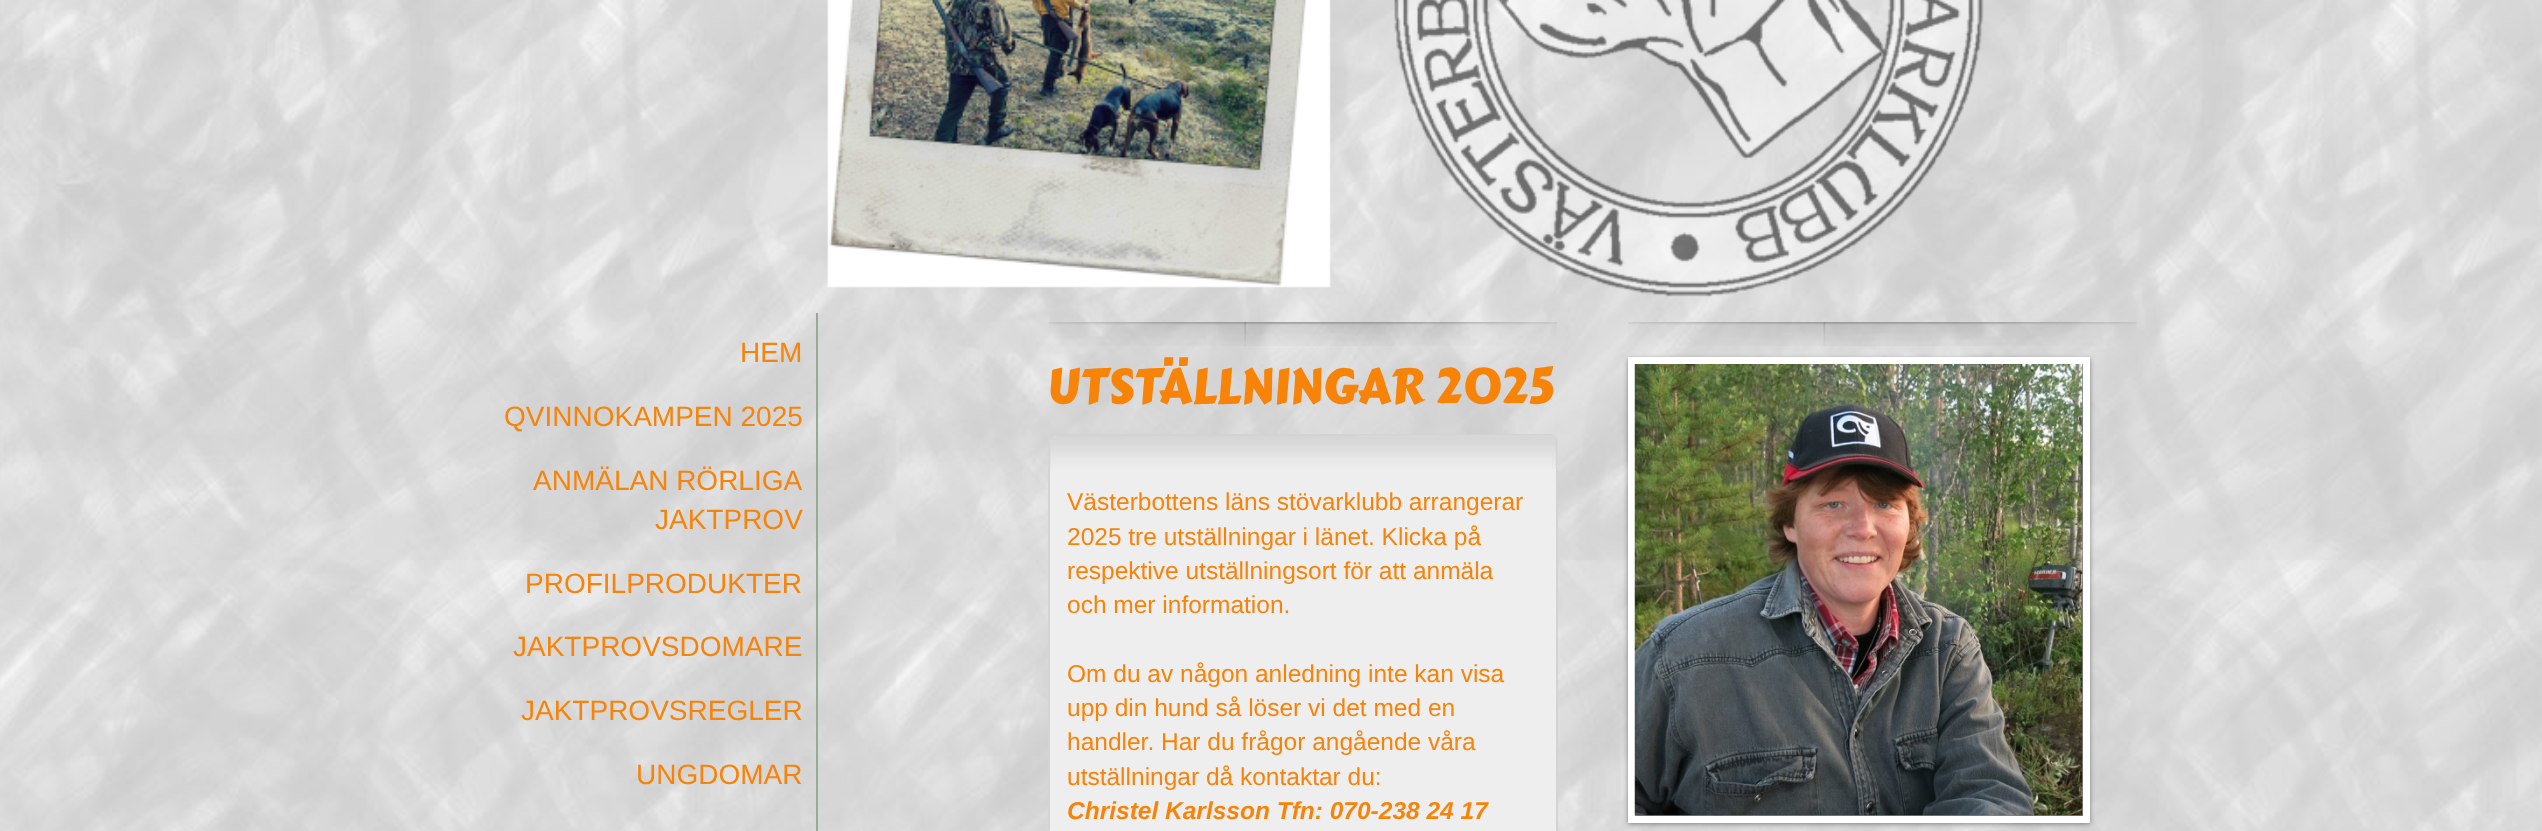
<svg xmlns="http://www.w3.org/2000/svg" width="2542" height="831">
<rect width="100%" height="100%" fill="#fff"/>
<image x="0" y="0" width="2542" height="831" href="media/1.png"/>
<image x="827" y="0" width="1157" height="297" href="media/2.png"/>
<rect x="816" y="313" width="2" height="518" fill="#93ab9b"/>
<text x="740" y="362" style="font-family:Liberation Sans;font-size:28px;fill:#f78308">HEM</text>
<text x="504" y="426" style="font-family:Liberation Sans;font-size:28px;fill:#f78308">QVINNOKAMPEN 2025</text>
<text x="533" y="490" style="font-family:Liberation Sans;font-size:28px;fill:#f78308">ANMÄLAN RÖRLIGA</text>
<text x="655" y="529" style="font-family:Liberation Sans;font-size:28px;fill:#f78308">JAKTPROV</text>
<text x="525" y="593" style="font-family:Liberation Sans;font-size:28px;fill:#f78308">PROFILPRODUKTER</text>
<text x="513" y="656" style="font-family:Liberation Sans;font-size:28px;fill:#f78308">JAKTPROVSDOMARE</text>
<text x="521" y="720" style="font-family:Liberation Sans;font-size:28px;fill:#f78308">JAKTPROVSREGLER</text>
<text x="636" y="784" style="font-family:Liberation Sans;font-size:28px;fill:#f78308">UNGDOMAR</text>
<image x="1361" y="322" width="196" height="24" href="media/3.png"/>
<image x="1048" y="322" width="198" height="24" href="media/4.png"/>
<image x="1244" y="322" width="118" height="24" href="media/5.png"/>
<text x="1047" y="403" style="font-family:Carter One;font-size:49px;fill:#f78308">UTSTÄLLNINGAR 2025</text>
<image x="1552" y="434" width="6" height="35" href="media/6.png"/>
<image x="1048" y="434" width="504" height="35" href="media/7.png"/>
<rect x="1556" y="469" width="2" height="362" fill="#d3d3d3"/>
<rect x="1048" y="469" width="2" height="360" fill="#d3d3d3"/>
<rect x="1050" y="469" width="506" height="362" fill="#eee"/>
<text x="1067" y="510" style="font-family:Liberation Sans;font-size:24.5px;fill:#f78308">Västerbottens läns stövarklubb arrangerar</text>
<text x="1067" y="545" style="font-family:Liberation Sans;font-size:24.5px;fill:#f78308">2025 tre utställningar i länet. Klicka på</text>
<text x="1067" y="579" style="font-family:Liberation Sans;font-size:24.5px;fill:#f78308">respektive utställningsort för att anmäla</text>
<text x="1067" y="613" style="font-family:Liberation Sans;font-size:24.5px;fill:#f78308">och mer information.</text>
<text x="1067" y="682" style="font-family:Liberation Sans;font-size:24.5px;fill:#f78308">Om du av någon anledning inte kan visa</text>
<text x="1067" y="716" style="font-family:Liberation Sans;font-size:24.5px;fill:#f78308">upp din hund så löser vi det med en</text>
<text x="1067" y="750" style="font-family:Liberation Sans;font-size:24.5px;fill:#f78308">handler. Har du frågor angående våra</text>
<text x="1067" y="785" style="font-family:Liberation Sans;font-size:24.5px;fill:#f78308">utställningar då kontaktar du:</text>
<text x="1067" y="819" style="font-family:Liberation Sans;font-size:24.5px;font-weight:bold;font-style:italic;fill:#f78308">Christel Karlsson Tfn: 070-238 24 17</text>
<image x="1940" y="322" width="197" height="24" href="media/8.png"/>
<image x="1628" y="322" width="198" height="24" href="media/9.png"/>
<image x="1823" y="322" width="118" height="24" href="media/10.png"/>
<rect x="1628" y="359" width="462" height="465" fill="#00000066" filter="blur(2.5px)"/>
<rect x="1631.5" y="360.5" width="455" height="459" fill="none" stroke="#fff" stroke-width="7"/>
<image x="1634" y="364" width="449" height="452" href="media/11.png"/>
</svg>
